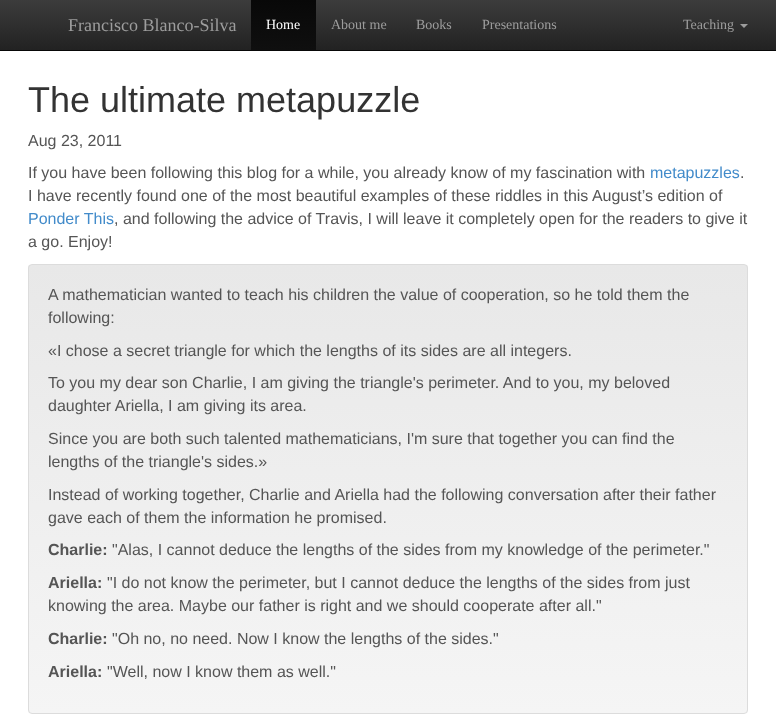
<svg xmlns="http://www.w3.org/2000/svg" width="776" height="720">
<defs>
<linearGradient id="g1" gradientUnits="userSpaceOnUse" x1="388" y1="0" x2="388" y2="50"><stop offset="0" stop-color="#3c3c3c"/><stop offset="1" stop-color="#222"/></linearGradient>
<linearGradient id="g2" gradientUnits="userSpaceOnUse" x1="284" y1="0" x2="284" y2="50"><stop offset="0" stop-color="#080808"/><stop offset="1" stop-color="#0f0f0f"/></linearGradient>
<clipPath id="clip1"><rect x="28" y="264" width="720" height="450" rx="4"/></clipPath>
<linearGradient id="g3" gradientUnits="userSpaceOnUse" x1="388" y1="265" x2="388" y2="713"><stop offset="0" stop-color="#e8e8e8"/><stop offset="1" stop-color="#f5f5f5"/></linearGradient>
</defs>
<rect width="100%" height="100%" fill="#fff"/>
<rect width="776" height="50" fill="url(#g1)"/>
<rect y="50" width="776" height="1" fill="#080808"/>
<text x="68" y="31" style="font-family:Liberation Serif;font-size:18px;fill:#9d9d9d">Francisco Blanco-Silva</text>
<rect x="251" width="65" height="50" fill="url(#g2)"/>
<text x="266" y="29" style="font-family:Liberation Serif;font-size:14px;fill:#fff">Home</text>
<text x="331" y="29" style="font-family:Liberation Serif;font-size:14px;fill:#9d9d9d">About me</text>
<text x="416" y="29" style="font-family:Liberation Serif;font-size:14px;fill:#9d9d9d">Books</text>
<text x="482" y="29" style="font-family:Liberation Serif;font-size:14px;fill:#9d9d9d">Presentations</text>
<text x="683" y="29" style="font-family:Liberation Serif;font-size:14px;fill:#9d9d9d">Teaching</text>
<path d="M740 24h8l-4 4z" fill="#9d9d9d"/>
<text x="28" y="112" style="font-family:Liberation Sans;font-size:36px;fill:#333">The ultimate metapuzzle</text>
<text x="28" y="146" style="font-family:Liberation Sans;font-size:16px;fill:#555">Aug 23, 2011</text>
<text x="28" y="178" style="font-family:Liberation Sans;font-size:16px;fill:#555">If you have been following this blog for a while, you already know of my fascination with</text>
<text x="650" y="178" style="font-family:Liberation Sans;font-size:16px;fill:#428bca">metapuzzles</text>
<text x="740" y="178" style="font-family:Liberation Sans;font-size:16px;fill:#555">.</text>
<text x="28" y="201" style="font-family:Liberation Sans;font-size:16px;fill:#555">I have recently found one of the most beautiful examples of these riddles in this August’s edition of</text>
<text x="28" y="224" style="font-family:Liberation Sans;font-size:16px;fill:#428bca">Ponder This</text>
<text x="114" y="224" style="font-family:Liberation Sans;font-size:16px;fill:#555">, and following the advice of Travis, I will leave it completely open for the readers to give it</text>
<text x="28" y="247" style="font-family:Liberation Sans;font-size:16px;fill:#555">a go. Enjoy!</text>
<g clip-path="url(#clip1)">
<rect x="28" y="265" width="720" height="448" fill="url(#g3)"/>
</g>
<rect x="28.5" y="264.5" width="719" height="449" rx="3.5" fill="none" stroke="#dcdcdc"/>
<text x="48" y="300" style="font-family:Liberation Sans;font-size:16px;fill:#555">A mathematician wanted to teach his children the value of cooperation, so he told them the</text>
<text x="48" y="323" style="font-family:Liberation Sans;font-size:16px;fill:#555">following:</text>
<text x="48" y="356" style="font-family:Liberation Sans;font-size:16px;fill:#555">«I chose a secret triangle for which the lengths of its sides are all integers.</text>
<text x="48" y="388" style="font-family:Liberation Sans;font-size:16px;fill:#555">To you my dear son Charlie, I am giving the triangle's perimeter. And to you, my beloved</text>
<text x="48" y="411" style="font-family:Liberation Sans;font-size:16px;fill:#555">daughter Ariella, I am giving its area.</text>
<text x="48" y="444" style="font-family:Liberation Sans;font-size:16px;fill:#555">Since you are both such talented mathematicians, I'm sure that together you can find the</text>
<text x="48" y="467" style="font-family:Liberation Sans;font-size:16px;fill:#555">lengths of the triangle's sides.»</text>
<text x="48" y="500" style="font-family:Liberation Sans;font-size:16px;fill:#555">Instead of working together, Charlie and Ariella had the following conversation after their father</text>
<text x="48" y="523" style="font-family:Liberation Sans;font-size:16px;fill:#555">gave each of them the information he promised.</text>
<text x="48" y="555" style="font-family:Liberation Sans;font-size:16px;font-weight:bold;fill:#555">Charlie:</text>
<text x="112" y="555" style="font-family:Liberation Sans;font-size:16px;fill:#555">"Alas, I cannot deduce the lengths of the sides from my knowledge of the perimeter."</text>
<text x="48" y="588" style="font-family:Liberation Sans;font-size:16px;font-weight:bold;fill:#555">Ariella:</text>
<text x="107" y="588" style="font-family:Liberation Sans;font-size:16px;fill:#555">"I do not know the perimeter, but I cannot deduce the lengths of the sides from just</text>
<text x="48" y="611" style="font-family:Liberation Sans;font-size:16px;fill:#555">knowing the area. Maybe our father is right and we should cooperate after all."</text>
<text x="48" y="644" style="font-family:Liberation Sans;font-size:16px;font-weight:bold;fill:#555">Charlie:</text>
<text x="112" y="644" style="font-family:Liberation Sans;font-size:16px;fill:#555">"Oh no, no need. Now I know the lengths of the sides."</text>
<text x="48" y="677" style="font-family:Liberation Sans;font-size:16px;font-weight:bold;fill:#555">Ariella:</text>
<text x="107" y="677" style="font-family:Liberation Sans;font-size:16px;fill:#555">"Well, now I know them as well."</text>
</svg>
